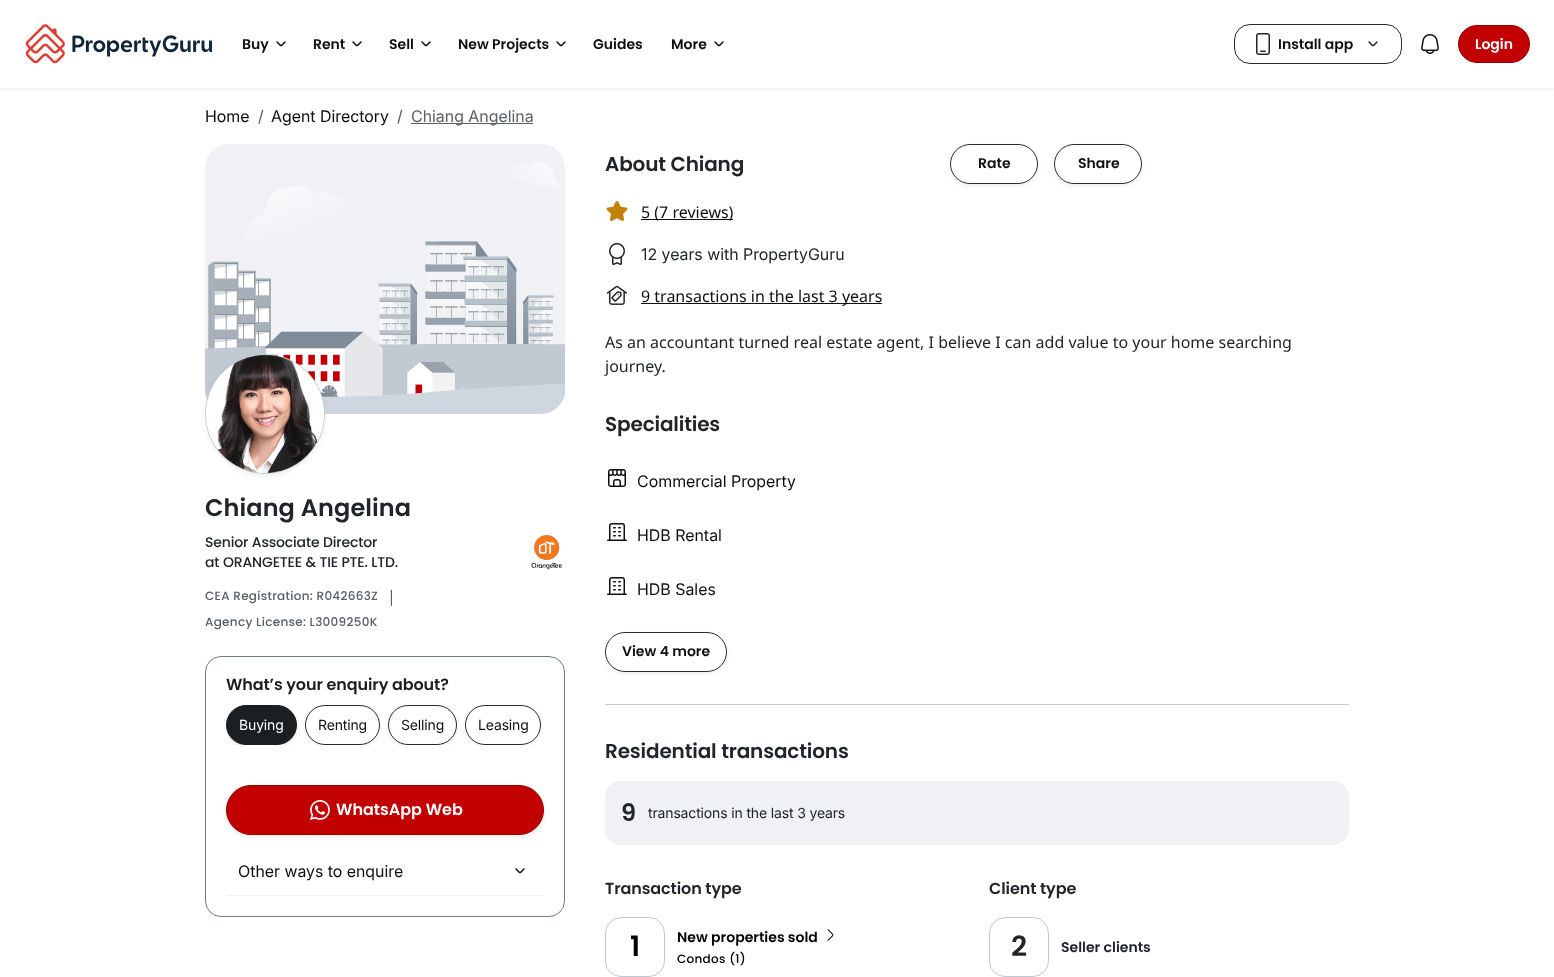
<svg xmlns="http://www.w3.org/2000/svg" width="1554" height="977">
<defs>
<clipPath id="clip1"><rect x="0" y="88" width="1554" height="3"/></clipPath>
<clipPath id="clip2"><rect x="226" y="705" width="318" height="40"/></clipPath>
<clipPath id="clip3"><path d="M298 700h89v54h-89zm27 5h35c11 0 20 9 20 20c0 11-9 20-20 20h-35c-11 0-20-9-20-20c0-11 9-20 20-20z" clip-rule="evenodd"/></clipPath>
<clipPath id="clip4"><path d="M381 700h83v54h-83zm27 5h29c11 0 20 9 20 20c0 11-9 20-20 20h-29c-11 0-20-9-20-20c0-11 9-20 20-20z" clip-rule="evenodd"/></clipPath>
<clipPath id="clip5"><path d="M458 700h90v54h-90zm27 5h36c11 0 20 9 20 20c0 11-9 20-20 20h-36c-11 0-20-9-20-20c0-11 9-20 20-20z" clip-rule="evenodd"/></clipPath>
<clipPath id="clip6"><path d="M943 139h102v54h-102zm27 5h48c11 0 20 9 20 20c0 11-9 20-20 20h-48c-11 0-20-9-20-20c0-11 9-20 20-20z" clip-rule="evenodd"/></clipPath>
<clipPath id="clip7"><path d="M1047 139h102v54h-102zm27 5h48c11 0 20 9 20 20c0 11-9 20-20 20h-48c-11 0-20-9-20-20c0-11 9-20 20-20z" clip-rule="evenodd"/></clipPath>
<clipPath id="clip8"><path d="M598 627h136v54h-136zm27 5h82c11 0 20 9 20 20c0 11-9 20-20 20h-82c-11 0-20-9-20-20c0-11 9-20 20-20z" clip-rule="evenodd"/></clipPath>
</defs>
<rect width="100%" height="100%" fill="#fff"/>
<g clip-path="url(#clip1)">
<rect y="2" width="1554" height="88" fill="#282c2e14" filter="blur(2px)"/>
</g>
<image x="25" y="24" width="187" height="40" href="media/1.png"/>
<text x="242" y="49" style="font-family:Poppins;font-size:14px;font-weight:600;fill:#0d1011">Buy</text>
<image x="276" y="41" width="10" height="6" href="media/2.png"/>
<text x="313" y="49" style="font-family:Poppins;font-size:14px;font-weight:600;fill:#0d1011">Rent</text>
<image x="352" y="41" width="10" height="6" href="media/2.png"/>
<text x="389" y="49" style="font-family:Poppins;font-size:14px;font-weight:600;fill:#0d1011">Sell</text>
<image x="421" y="41" width="10" height="6" href="media/2.png"/>
<text x="458" y="49" style="font-family:Poppins;font-size:14px;font-weight:600;fill:#0d1011">New Projects</text>
<image x="556" y="41" width="10" height="6" href="media/2.png"/>
<text x="593" y="49" style="font-family:Poppins;font-size:14px;font-weight:600;fill:#0d1011">Guides</text>
<text x="671" y="49" style="font-family:Poppins;font-size:14px;font-weight:600;fill:#0d1011">More</text>
<image x="714" y="41" width="10" height="6" href="media/2.png"/>
<rect x="1234.5" y="24.5" width="167" height="39" rx="15.5" fill="none" stroke="#282c2e"/>
<image x="1256" y="33" width="14" height="22" href="media/3.png"/>
<text x="1278" y="49" style="font-family:Poppins;font-size:14px;font-weight:600;fill:#0d1011">Install app</text>
<image x="1368" y="41" width="10" height="6" href="media/4.png"/>
<image x="1421" y="34" width="18" height="20" href="media/5.png"/>
<rect x="1458.5" y="25.5" width="71" height="37" rx="18.5" fill="#c20000" stroke="#940000"/>
<text x="1475" y="49" style="font-family:Poppins;font-size:14px;font-weight:600;fill:#fff">Login</text>
<text x="205" y="122" style="font-family:Inter;font-size:16px;fill:#0d1011">Home</text>
<text x="258" y="122" style="font-family:Inter;font-size:16px;fill:#595c5f">/</text>
<text x="271" y="122" style="font-family:Inter;font-size:16px;fill:#0d1011">Agent Directory</text>
<text x="397" y="122" style="font-family:Inter;font-size:16px;fill:#595c5f">/</text>
<rect x="411" y="123" width="122" height="1" fill="#5a6067"/>
<text x="411" y="122" style="font-family:Inter;font-size:16px;fill:#5a6067">Chiang Angelina</text>
<image x="205" y="144" width="360" height="270" href="media/6.png"/>
<rect x="205" y="356" width="120" height="120" rx="60" fill="#282c2e14" filter="blur(2px)"/>
<circle cx="265" cy="414" r="59.5" fill="#eff1f5" stroke="#c1c9d2"/>
<image x="206" y="355" width="118" height="118" href="media/7.png"/>
<text x="205" y="516" style="font-family:Poppins;font-size:24px;font-weight:600;letter-spacing:0.1px;fill:#212529">Chiang Angelina</text>
<text x="205" y="547" style="font-family:Poppins;font-size:14px;font-weight:500;letter-spacing:-0.15px;fill:#212529">Senior Associate Director</text>
<text x="205" y="567" style="font-family:Poppins;font-size:14px;font-weight:500;letter-spacing:-0.15px;fill:#212529">at ORANGETEE &amp; TIE PTE. LTD.</text>
<image x="531" y="535" width="31" height="35" href="media/8.png"/>
<text x="205" y="600" style="font-family:Poppins;font-size:12px;font-weight:500;letter-spacing:0.3px;fill:#5a6067">CEA Registration: R042663Z</text>
<text x="387" y="602" style="font-family:Noto Sans;font-size:16px;fill:#5a6067">|</text>
<text x="205" y="626" style="font-family:Poppins;font-size:12px;font-weight:500;letter-spacing:0.3px;fill:#5a6067">Agency License: L3009250K</text>
<rect x="205.5" y="656.5" width="359" height="260" rx="15.5" fill="none" stroke="#737d87"/>
<text x="226" y="690" style="font-family:Poppins;font-size:16px;font-weight:600;letter-spacing:-0.1px;fill:#1c1f22">What’s your enquiry about?</text>
<g clip-path="url(#clip2)">
<rect x="226" y="707" width="71" height="40" rx="20" fill="#282c2e1f" filter="blur(2px)"/>
</g>
<rect x="226.5" y="705.5" width="70" height="39" rx="19.5" fill="#1c1f22" stroke="#1c1f22"/>
<text x="239" y="730" style="font-family:'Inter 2';font-size:14px;letter-spacing:-0.15px;fill:#fff">Buying</text>
<g clip-path="url(#clip2)">
<g clip-path="url(#clip3)">
<rect x="305" y="707" width="75" height="40" rx="20" fill="#282c2e14" filter="blur(2px)"/>
</g>
</g>
<rect x="305.5" y="705.5" width="74" height="39" rx="19.5" fill="none" stroke="#282c2e"/>
<text x="318" y="730" style="font-family:'Inter 2';font-size:14px;letter-spacing:-0.15px;fill:#0d1011">Renting</text>
<g clip-path="url(#clip2)">
<g clip-path="url(#clip4)">
<rect x="388" y="707" width="69" height="40" rx="20" fill="#282c2e14" filter="blur(2px)"/>
</g>
</g>
<rect x="388.5" y="705.5" width="68" height="39" rx="19.5" fill="none" stroke="#282c2e"/>
<text x="401" y="730" style="font-family:'Inter 2';font-size:14px;letter-spacing:-0.15px;fill:#0d1011">Selling</text>
<g clip-path="url(#clip2)">
<g clip-path="url(#clip5)">
<rect x="465" y="707" width="76" height="40" rx="20" fill="#282c2e14" filter="blur(2px)"/>
</g>
</g>
<rect x="465.5" y="705.5" width="75" height="39" rx="19.5" fill="none" stroke="#282c2e"/>
<text x="478" y="730" style="font-family:'Inter 2';font-size:14px;letter-spacing:-0.15px;fill:#0d1011">Leasing</text>
<rect x="226" y="787" width="318" height="50" rx="25" fill="#282c2e1f" filter="blur(2px)"/>
<rect x="226.5" y="785.5" width="317" height="49" rx="24.5" fill="#c20000" stroke="#940000"/>
<image x="310" y="800" width="20" height="20" href="media/9.png"/>
<text x="336" y="815" style="font-family:Poppins;font-size:16px;font-weight:600;fill:#fff">WhatsApp Web</text>
<rect x="226" y="895" width="318" height="1" fill="#eff1f5"/>
<text x="238" y="877" style="font-family:Inter;font-size:16px;fill:#0d1011">Other ways to enquire</text>
<image x="515" y="868" width="10" height="6" href="media/2.png"/>
<text x="605" y="171" style="font-family:Poppins;font-size:20px;font-weight:600;letter-spacing:-0.15px;fill:#212529">About Chiang</text>
<g clip-path="url(#clip6)">
<rect x="950" y="146" width="88" height="40" rx="20" fill="#282c2e14" filter="blur(2px)"/>
</g>
<rect x="950.5" y="144.5" width="87" height="39" rx="19.5" fill="none" stroke="#282c2e"/>
<text x="978" y="168" style="font-family:Poppins;font-size:14px;font-weight:600;fill:#0d1011">Rate</text>
<g clip-path="url(#clip7)">
<rect x="1054" y="146" width="88" height="40" rx="20" fill="#282c2e14" filter="blur(2px)"/>
</g>
<rect x="1054.5" y="144.5" width="87" height="39" rx="19.5" fill="none" stroke="#282c2e"/>
<text x="1078" y="168" style="font-family:Poppins;font-size:14px;font-weight:600;fill:#0d1011">Share</text>
<image x="606" y="201" width="22" height="20" href="media/10.png"/>
<rect x="641" y="219" width="92" height="1" fill="#0d1011"/>
<text x="641" y="218" style="font-family:Noto Sans;font-size:16px;fill:#0d1011">5 (7 reviews)</text>
<image x="609" y="243" width="16" height="22" href="media/11.png"/>
<text x="641" y="260" style="font-family:Inter;font-size:16px;fill:#212529">12 years with PropertyGuru</text>
<image x="606" y="285" width="22" height="20" href="media/12.png"/>
<rect x="641" y="303" width="241" height="1" fill="#0d1011"/>
<text x="641" y="302" style="font-family:Noto Sans;font-size:16px;fill:#0d1011">9 transactions in the last 3 years</text>
<text x="605" y="348" style="font-family:Noto Sans;font-size:16px;fill:#212529">As an accountant turned real estate agent, I believe I can add value to your home searching</text>
<text x="605" y="372" style="font-family:Noto Sans;font-size:16px;fill:#212529">journey.</text>
<text x="605" y="431" style="font-family:Poppins;font-size:20px;font-weight:600;letter-spacing:-0.15px;fill:#212529">Specialities</text>
<image x="608" y="469" width="18" height="18" href="media/13.png"/>
<text x="637" y="487" style="font-family:Inter;font-size:16px;fill:#0d1011">Commercial Property</text>
<image x="607" y="523" width="20" height="18" href="media/14.png"/>
<text x="637" y="541" style="font-family:Inter;font-size:16px;fill:#0d1011">HDB Rental</text>
<image x="607" y="577" width="20" height="18" href="media/14.png"/>
<text x="637" y="595" style="font-family:Inter;font-size:16px;fill:#0d1011">HDB Sales</text>
<g clip-path="url(#clip8)">
<rect x="605" y="634" width="122" height="40" rx="20" fill="#282c2e14" filter="blur(2px)"/>
</g>
<rect x="605.5" y="632.5" width="121" height="39" rx="19.5" fill="none" stroke="#282c2e"/>
<text x="622" y="656" style="font-family:Poppins;font-size:14px;font-weight:600;fill:#0d1011">View 4 more</text>
<rect x="605" y="704" width="744" height="1" fill="#c8c9ca"/>
<text x="605" y="758" style="font-family:Poppins;font-size:20px;font-weight:600;letter-spacing:-0.15px;fill:#212529">Residential transactions</text>
<rect x="605" y="781" width="744" height="64" rx="16" fill="#eff1f5"/>
<text x="621" y="821" style="font-family:Poppins;font-size:24px;font-weight:600;letter-spacing:0.1px;fill:#212529">9</text>
<text x="648" y="818" style="font-family:'Inter 2';font-size:14px;letter-spacing:-0.15px;fill:#212529">transactions in the last 3 years</text>
<text x="605" y="894" style="font-family:Poppins;font-size:16px;font-weight:600;letter-spacing:-0.1px;fill:#212529">Transaction type</text>
<text x="989" y="894" style="font-family:Poppins;font-size:16px;font-weight:600;letter-spacing:-0.1px;fill:#212529">Client type</text>
<rect x="605.5" y="917.5" width="59" height="59" rx="15.5" fill="none" stroke="#c1c9d2"/>
<text x="630" y="956" style="font-family:Poppins;font-size:28px;font-weight:600;fill:#000">1</text>
<text x="677" y="942" style="font-family:Poppins;font-size:14px;font-weight:600;fill:#000">New properties sold</text>
<image x="827" y="929" width="7" height="12" href="media/15.png"/>
<text x="677" y="963" style="font-family:Poppins;font-size:12px;font-weight:500;letter-spacing:0.3px;fill:#000">Condos (1)</text>
<rect x="989.5" y="917.5" width="59" height="59" rx="15.5" fill="none" stroke="#c1c9d2"/>
<text x="1011" y="956" style="font-family:Poppins;font-size:28px;font-weight:600;fill:#212529">2</text>
<text x="1061" y="952" style="font-family:Poppins;font-size:14px;font-weight:600;fill:#212529">Seller clients</text>
</svg>
